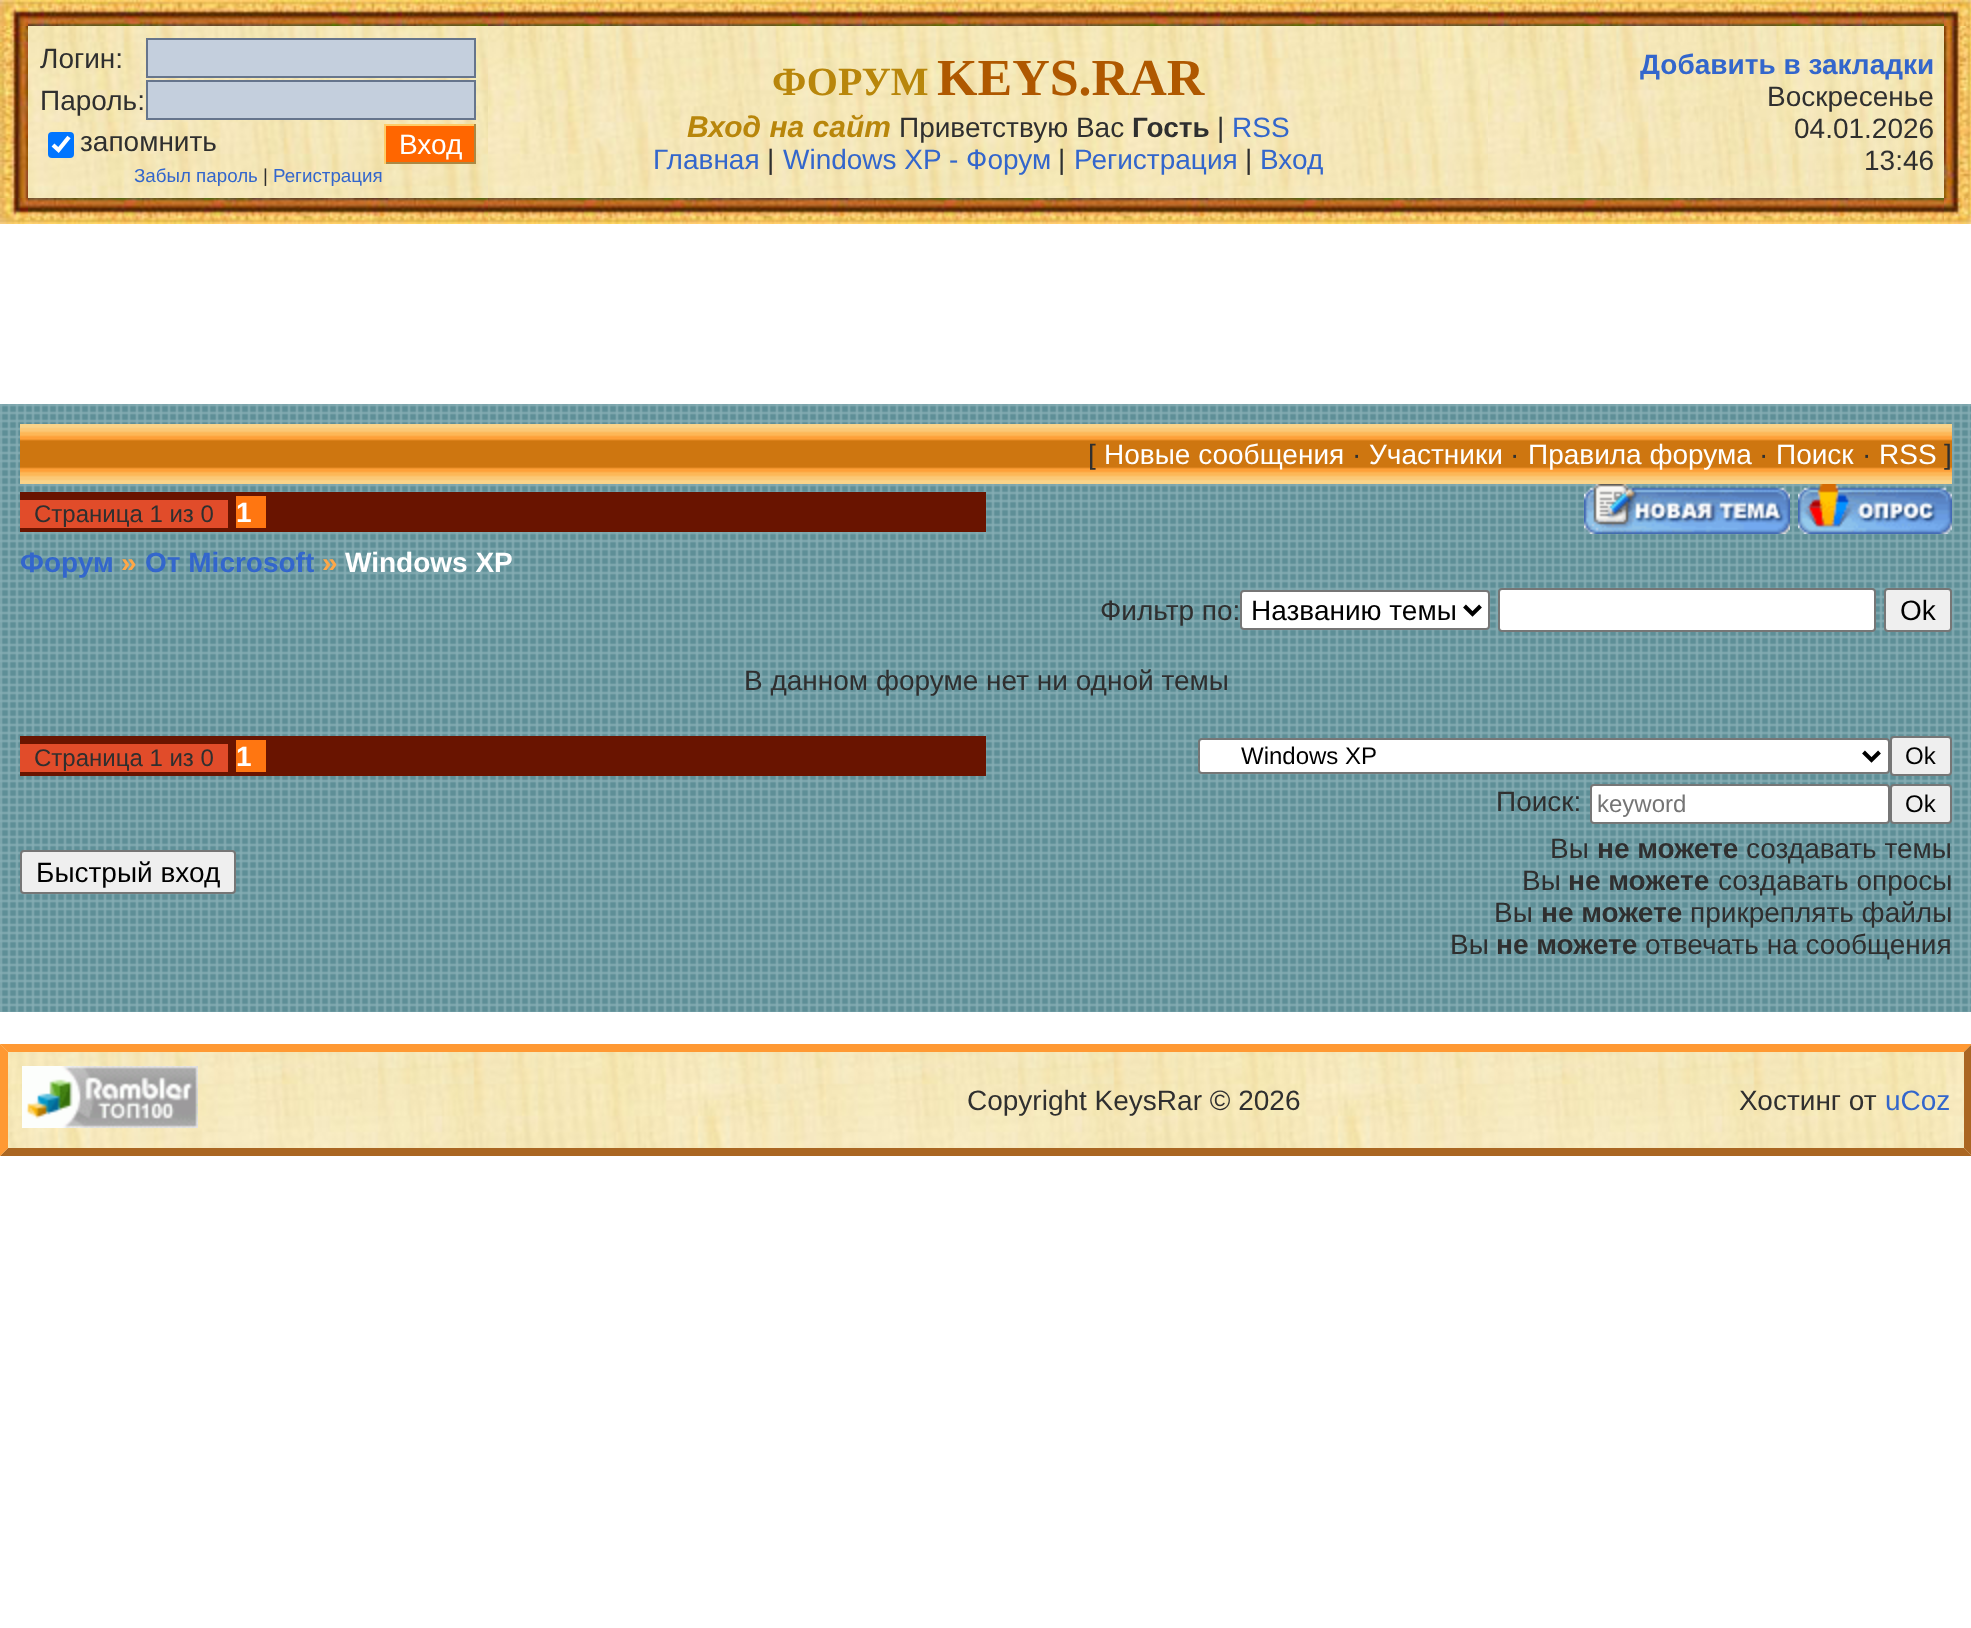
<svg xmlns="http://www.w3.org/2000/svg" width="1971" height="1628">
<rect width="100%" height="100%" fill="#fff"/>
<image x="0" y="0" width="28" height="26" href="media/1.png"/>
<image x="28" y="0" width="460" height="26" href="media/2.png"/>
<image x="488" y="0" width="1000" height="26" href="media/3.png"/>
<image x="1488" y="0" width="456" height="26" href="media/4.png"/>
<image x="1944" y="0" width="27" height="26" href="media/5.png"/>
<image x="0" y="26" width="28" height="172" href="media/6.png"/>
<image x="28" y="26" width="460" height="172" href="media/7.png"/>
<text x="40" y="68" style="font-family:Liberation Sans;font-size:28px;fill:#2f2f2f">Логин:</text>
<rect x="147" y="39" width="328" height="38" fill="#c4cfdd" stroke="#66758c" stroke-width="2"/>
<text x="40" y="110" style="font-family:Liberation Sans;font-size:28px;fill:#2f2f2f">Пароль:</text>
<rect x="147" y="81" width="328" height="38" fill="#c4cfdd" stroke="#66758c" stroke-width="2"/>
<rect x="48" y="132" width="26" height="26" rx="4" fill="#0075ff"/>
<path d="M53 145l5.5 5l10.5-13" fill="none" stroke="#fff" stroke-width="4.2"/>
<text x="80" y="151" style="font-family:Liberation Sans;font-size:28px;fill:#2f2f2f">запомнить</text>
<rect x="386" y="126" width="88" height="36" fill="#f60"/>
<rect x="384" y="124" width="92" height="2" fill="#fc6"/>
<rect x="474" y="124" width="2" height="40" fill="#a84"/>
<rect x="384" y="162" width="92" height="2" fill="#a84"/>
<rect x="384" y="124" width="2" height="40" fill="#fc6"/>
<text x="399" y="154" style="font-family:Liberation Sans;font-size:28px;fill:#fff">Вход</text>
<text x="134" y="182" style="font-family:Liberation Sans;font-size:18.75px;fill:#36c">Забыл пароль</text>
<text x="263" y="182" style="font-family:Liberation Sans;font-size:18.75px;fill:#2f2f2f">|</text>
<text x="273" y="182" style="font-family:Liberation Sans;font-size:18.75px;fill:#36c">Регистрация</text>
<image x="488" y="26" width="1000" height="172" href="media/8.png"/>
<text x="772" y="95" style="font-family:Liberation Serif;font-size:40px;font-weight:bold;fill:#b8860b">ФОРУМ</text>
<text x="937" y="95" style="font-family:Liberation Serif;font-size:52px;font-weight:bold;fill:#af5800">KEYS.RAR</text>
<text x="687" y="137" style="font-family:Liberation Sans;font-size:30px;font-weight:bold;font-style:italic;fill:#b8860b">Вход на сайт</text>
<text x="899" y="137" style="font-family:Liberation Sans;font-size:28px;fill:#2f2f2f">Приветствую Вас</text>
<text x="1132" y="137" style="font-family:Liberation Sans;font-size:28px;font-weight:bold;fill:#2f2f2f">Гость</text>
<text x="1217" y="137" style="font-family:Liberation Sans;font-size:28px;fill:#2f2f2f">|</text>
<text x="1232" y="137" style="font-family:Liberation Sans;font-size:28px;fill:#36c">RSS</text>
<text x="653" y="169" style="font-family:Liberation Sans;font-size:28px;fill:#36c">Главная</text>
<text x="767" y="169" style="font-family:Liberation Sans;font-size:28px;fill:#2f2f2f">|</text>
<text x="783" y="169" style="font-family:Liberation Sans;font-size:28px;fill:#36c">Windows XP - Форум</text>
<text x="1058" y="169" style="font-family:Liberation Sans;font-size:28px;fill:#2f2f2f">|</text>
<text x="1074" y="169" style="font-family:Liberation Sans;font-size:28px;fill:#36c">Регистрация</text>
<text x="1245" y="169" style="font-family:Liberation Sans;font-size:28px;fill:#2f2f2f">|</text>
<text x="1260" y="169" style="font-family:Liberation Sans;font-size:28px;fill:#36c">Вход</text>
<image x="1488" y="26" width="456" height="172" href="media/9.png"/>
<text x="1640" y="74" style="font-family:Liberation Sans;font-size:28px;font-weight:bold;fill:#36c">Добавить в закладки</text>
<text x="1767" y="106" style="font-family:Liberation Sans;font-size:28px;fill:#2f2f2f">Воскресенье</text>
<text x="1794" y="138" style="font-family:Liberation Sans;font-size:28px;fill:#2f2f2f">04.01.2026</text>
<text x="1864" y="170" style="font-family:Liberation Sans;font-size:28px;fill:#2f2f2f">13:46</text>
<image x="1944" y="26" width="27" height="172" href="media/10.png"/>
<image x="0" y="198" width="28" height="26" href="media/11.png"/>
<image x="28" y="198" width="460" height="26" href="media/12.png"/>
<image x="488" y="198" width="1000" height="26" href="media/13.png"/>
<image x="1488" y="198" width="456" height="26" href="media/14.png"/>
<image x="1944" y="198" width="27" height="26" href="media/15.png"/>
<image x="0" y="404" width="1971" height="608" href="media/16.png"/>
<image x="20" y="424" width="1932" height="60" href="media/17.png"/>
<text x="1088" y="464" style="font-family:Liberation Sans;font-size:28px;fill:#2f2f2f">[</text>
<text x="1104" y="464" style="font-family:Liberation Sans;font-size:28px;fill:#fff">Новые сообщения</text>
<text x="1352" y="464" style="font-family:Liberation Sans;font-size:28px;fill:#2f2f2f">·</text>
<text x="1369" y="464" style="font-family:Liberation Sans;font-size:28px;fill:#fff">Участники</text>
<text x="1510" y="464" style="font-family:Liberation Sans;font-size:28px;fill:#2f2f2f">·</text>
<text x="1528" y="464" style="font-family:Liberation Sans;font-size:28px;fill:#fff">Правила форума</text>
<text x="1759" y="464" style="font-family:Liberation Sans;font-size:28px;fill:#2f2f2f">·</text>
<text x="1776" y="464" style="font-family:Liberation Sans;font-size:28px;fill:#fff">Поиск</text>
<text x="1862" y="464" style="font-family:Liberation Sans;font-size:28px;fill:#2f2f2f">·</text>
<text x="1879" y="464" style="font-family:Liberation Sans;font-size:28px;fill:#fff">RSS</text>
<text x="1944" y="464" style="font-family:Liberation Sans;font-size:28px;fill:#2f2f2f">]</text>
<rect x="20" y="492" width="966" height="40" fill="#691400"/>
<rect x="20" y="500" width="208" height="28" fill="#e14c2a"/>
<text x="34" y="522" style="font-family:Liberation Sans;font-size:24px;fill:#2f2f2f">Страница 1 из 0</text>
<rect x="236" y="496" width="30" height="32" fill="#ff7611"/>
<text x="236" y="522" style="font-family:Liberation Sans;font-size:28px;font-weight:bold;fill:#fff">1</text>
<image x="1584" y="484" width="206" height="50" href="media/18.png"/>
<image x="1798" y="484" width="154" height="50" href="media/19.png"/>
<text x="20" y="572" style="font-family:Liberation Sans;font-size:28px;font-weight:bold;fill:#36c">Форум</text>
<text x="121" y="572" style="font-family:Liberation Sans;font-size:28px;font-weight:bold;fill:#ffa747">»</text>
<text x="145" y="572" style="font-family:Liberation Sans;font-size:28px;font-weight:bold;fill:#36c">От Microsoft</text>
<text x="322" y="572" style="font-family:Liberation Sans;font-size:28px;font-weight:bold;fill:#ffa747">»</text>
<text x="345" y="572" style="font-family:Liberation Sans;font-size:28px;font-weight:bold;fill:#fff">Windows XP</text>
<text x="1100" y="620" style="font-family:Liberation Sans;font-size:28px;fill:#2f2f2f">Фильтр по:</text>
<rect x="1241" y="591" width="248" height="38" rx="3" fill="#fff" stroke="#767676" stroke-width="2"/>
<path d="M1464.5 606l8 8l8-8" fill="none" stroke="#000" stroke-width="4"/>
<text x="1251" y="620" style="font-family:Liberation Sans;font-size:28px;fill:#000">Названию темы</text>
<rect x="1499" y="589" width="376" height="42" rx="3" fill="#fff" stroke="#767676" stroke-width="2"/>
<rect x="1885" y="589" width="66" height="42" rx="3" fill="#efefef" stroke="#767676" stroke-width="2"/>
<text x="1900" y="620" style="font-family:Liberation Sans;font-size:28px;fill:#000">Ok</text>
<text x="744" y="690" style="font-family:Liberation Sans;font-size:28px;fill:#2f2f2f">В данном форуме нет ни одной темы</text>
<rect x="20" y="736" width="966" height="40" fill="#691400"/>
<rect x="20" y="744" width="208" height="28" fill="#e14c2a"/>
<text x="34" y="766" style="font-family:Liberation Sans;font-size:24px;fill:#2f2f2f">Страница 1 из 0</text>
<rect x="236" y="740" width="30" height="32" fill="#ff7611"/>
<text x="236" y="766" style="font-family:Liberation Sans;font-size:28px;font-weight:bold;fill:#fff">1</text>
<rect x="1199" y="739" width="690" height="34" rx="3" fill="#fff" stroke="#767676" stroke-width="2"/>
<path d="M1863.5 752l8 8l8-8" fill="none" stroke="#000" stroke-width="4"/>
<text x="1241" y="764" style="font-family:Liberation Sans;font-size:24px;fill:#000">Windows XP</text>
<rect x="1891" y="737" width="60" height="38" rx="3" fill="#efefef" stroke="#767676" stroke-width="2"/>
<text x="1905" y="764" style="font-family:Liberation Sans;font-size:24px;fill:#000">Ok</text>
<rect x="21" y="851" width="214" height="42" rx="3" fill="#efefef" stroke="#767676" stroke-width="2"/>
<text x="36" y="882" style="font-family:Liberation Sans;font-size:28px;fill:#000">Быстрый вход</text>
<text x="1496" y="811" style="font-family:Liberation Sans;font-size:28px;fill:#2f2f2f">Поиск:</text>
<rect x="1591" y="785" width="298" height="38" rx="3" fill="#fff" stroke="#767676" stroke-width="2"/>
<text x="1597" y="812" style="font-family:Liberation Sans;font-size:24px;fill:#757575">keyword</text>
<rect x="1891" y="785" width="60" height="38" rx="3" fill="#efefef" stroke="#767676" stroke-width="2"/>
<text x="1905" y="812" style="font-family:Liberation Sans;font-size:24px;fill:#000">Ok</text>
<text x="1550" y="858" style="font-family:Liberation Sans;font-size:28px;fill:#2f2f2f">Вы</text>
<text x="1597" y="858" style="font-family:Liberation Sans;font-size:28px;font-weight:bold;fill:#2f2f2f">не можете</text>
<text x="1746" y="858" style="font-family:Liberation Sans;font-size:28px;fill:#2f2f2f">создавать темы</text>
<text x="1522" y="890" style="font-family:Liberation Sans;font-size:28px;fill:#2f2f2f">Вы</text>
<text x="1568" y="890" style="font-family:Liberation Sans;font-size:28px;font-weight:bold;fill:#2f2f2f">не можете</text>
<text x="1718" y="890" style="font-family:Liberation Sans;font-size:28px;fill:#2f2f2f">создавать опросы</text>
<text x="1494" y="922" style="font-family:Liberation Sans;font-size:28px;fill:#2f2f2f">Вы</text>
<text x="1541" y="922" style="font-family:Liberation Sans;font-size:28px;font-weight:bold;fill:#2f2f2f">не можете</text>
<text x="1690" y="922" style="font-family:Liberation Sans;font-size:28px;fill:#2f2f2f">прикреплять файлы</text>
<text x="1450" y="954" style="font-family:Liberation Sans;font-size:28px;fill:#2f2f2f">Вы</text>
<text x="1496" y="954" style="font-family:Liberation Sans;font-size:28px;font-weight:bold;fill:#2f2f2f">не можете</text>
<text x="1645" y="954" style="font-family:Liberation Sans;font-size:28px;fill:#2f2f2f">отвечать на сообщения</text>
<image x="0" y="1044" width="1971" height="112" href="media/20.png"/>
<path d="M0 1044h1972l-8 8h-1956z" fill="#f93"/>
<path d="M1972 1044v112l-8-8v-96z" fill="#a62"/>
<path d="M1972 1156h-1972l8-8h1956z" fill="#a62"/>
<path d="M0 1156v-112l8 8v96z" fill="#f93"/>
<image x="22" y="1066" width="176" height="62" href="media/21.png"/>
<text x="967" y="1110" style="font-family:Liberation Sans;font-size:28px;fill:#2f2f2f">Copyright KeysRar © 2026</text>
<text x="1739" y="1110" style="font-family:Liberation Sans;font-size:28px;fill:#2f2f2f">Хостинг от</text>
<text x="1885" y="1110" style="font-family:Liberation Sans;font-size:28px;fill:#36c">uCoz</text>
</svg>
